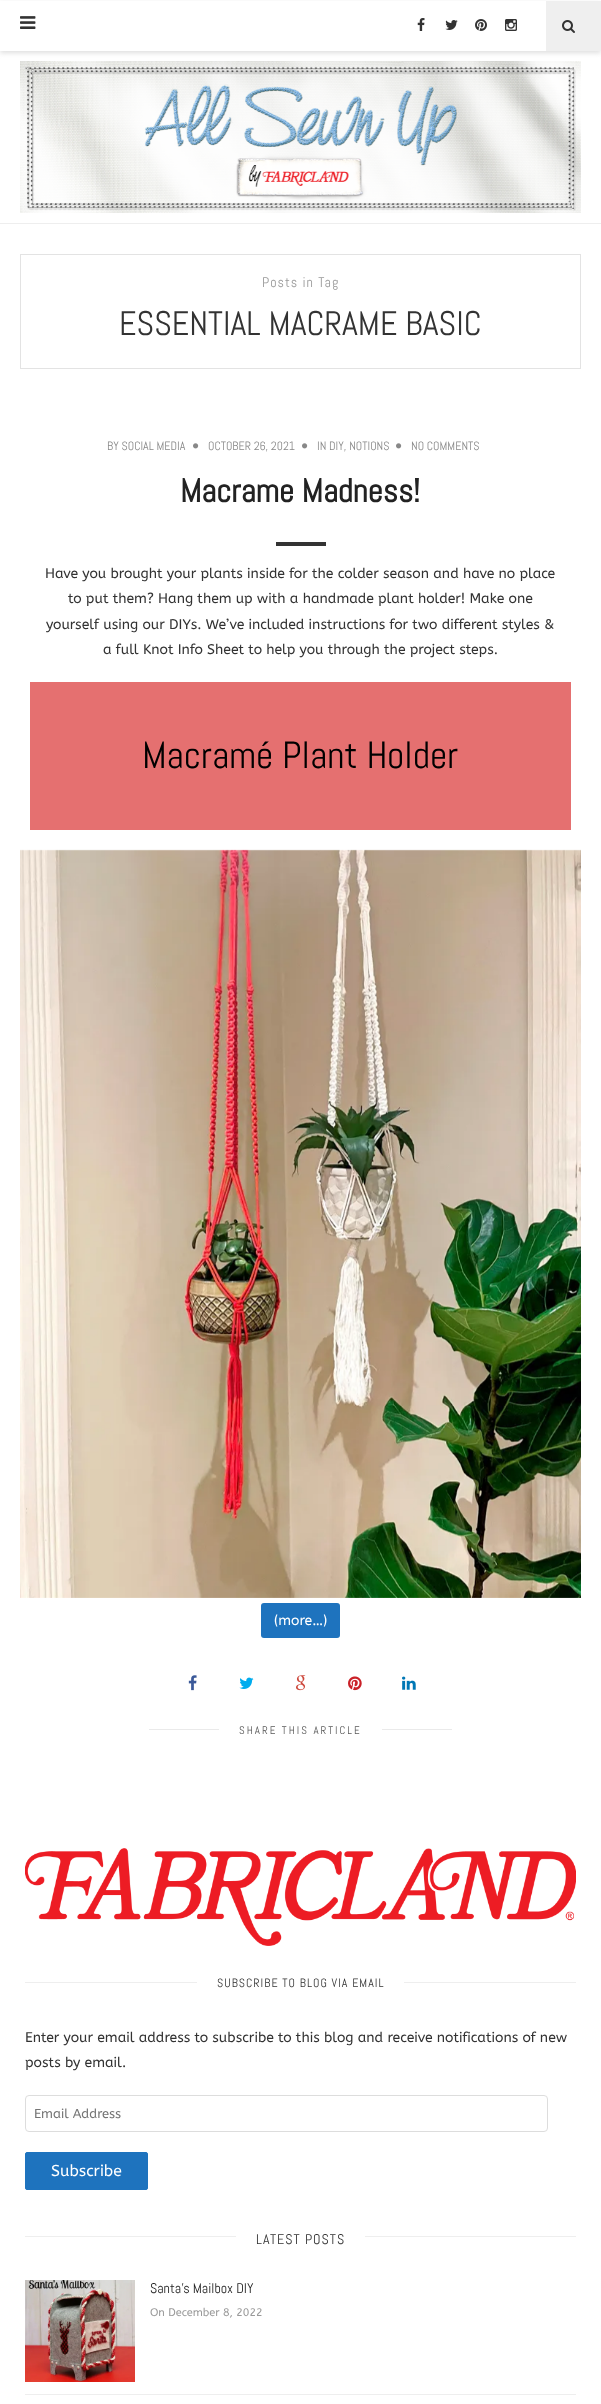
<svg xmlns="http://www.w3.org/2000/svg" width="601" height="2404">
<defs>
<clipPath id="clip1"><path d="M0 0h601v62h-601zm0 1h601v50h-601z" clip-rule="evenodd"/></clipPath>
</defs>
<rect width="100%" height="100%" fill="#fff"/>
<rect y="223" width="601" height="1" fill="#eee"/>
<image x="20" y="61" width="561" height="152" href="media/7.png"/>
<g clip-path="url(#clip1)">
<rect y="3" width="601" height="50" fill="#bebebe80" filter="blur(2.5px)"/>
</g>
<image x="20" y="16" width="16" height="13" href="media/1.png"/>
<image x="417" y="18" width="8" height="13" href="media/2.png"/>
<image x="445" y="20" width="13" height="10" href="media/3.png"/>
<image x="475" y="19" width="12" height="12" href="media/4.png"/>
<image x="505" y="19" width="12" height="12" href="media/5.png"/>
<rect x="546" y="1" width="55" height="50" fill="#efefef"/>
<image x="562" y="20" width="13" height="13" href="media/6.png"/>
<rect x="20.5" y="254.5" width="560" height="114" fill="none" stroke="#e3e3e3"/>
<text x="262" y="287" style="font-family:Abel;font-size:14px;letter-spacing:1px;fill:#999">Posts in Tag</text>
<text x="119" y="335" style="font-family:Abel;font-size:34px;fill:#333">ESSENTIAL MACRAME BASIC</text>
<text x="107" y="450" style="font-family:Abel;font-size:12px;fill:#888">BY SOCIAL MEDIA</text>
<image x="193" y="443" width="6" height="6" href="media/8.png"/>
<text x="208" y="450" style="font-family:Abel;font-size:12px;fill:#888">OCTOBER 26, 2021</text>
<image x="302" y="443" width="6" height="6" href="media/8.png"/>
<text x="317" y="450" style="font-family:Abel;font-size:12px;fill:#888">IN DIY, NOTIONS</text>
<image x="396" y="443" width="6" height="6" href="media/8.png"/>
<text x="411" y="450" style="font-family:Abel;font-size:12px;fill:#888">NO COMMENTS</text>
<text x="180" y="502" style="font-family:Abel;font-size:33px;font-weight:bold;fill:#222">Macrame Madness!</text>
<rect x="276" y="542" width="50" height="4" fill="#333"/>
<text x="45" y="578" style="font-family:ABeeZee;font-size:14px;fill:#333">Have you brought your plants inside for the colder season and have no place</text>
<text x="68" y="603" style="font-family:ABeeZee;font-size:14px;fill:#333">to put them? Hang them up with a handmade plant holder! Make one</text>
<text x="46" y="629" style="font-family:ABeeZee;font-size:14px;fill:#333">yourself using our DIYs. We’ve included instructions for two different styles &amp;</text>
<text x="103" y="654" style="font-family:ABeeZee;font-size:14px;fill:#333">a full Knot Info Sheet to help you through the project steps.</text>
<rect x="30" y="682" width="541" height="148" fill="#e57070"/>
<text x="142" y="768" style="font-family:Abel;font-size:38px;fill:#000">Macramé Plant Holder</text>
<image x="20" y="849" width="561" height="749" href="media/9.png"/>
<rect x="261" y="1603" width="79" height="35" rx="3" fill="#1e73be"/>
<text x="274" y="1625" style="font-family:ABeeZee;font-size:14px;fill:#fff">(more…)</text>
<image x="188" y="1675" width="9" height="16" href="media/10.png"/>
<image x="239" y="1677" width="15" height="12" href="media/11.png"/>
<image x="296" y="1675" width="10" height="16" href="media/12.png"/>
<image x="348" y="1676" width="14" height="15" href="media/13.png"/>
<image x="402" y="1676" width="14" height="14" href="media/14.png"/>
<rect x="149" y="1729" width="70" height="1" fill="#eaeaea"/>
<text x="239" y="1734" style="font-family:Abel;font-size:11px;letter-spacing:2px;fill:#5a5a5a">SHARE THIS ARTICLE</text>
<rect x="382" y="1729" width="70" height="1" fill="#eaeaea"/>
<image x="25" y="1848" width="551" height="98" href="media/15.png"/>
<rect x="25" y="1982" width="172" height="1" fill="#eee"/>
<text x="217" y="1987" style="font-family:Abel;font-size:12px;letter-spacing:1px;fill:#333">SUBSCRIBE TO BLOG VIA EMAIL</text>
<rect x="404" y="1982" width="172" height="1" fill="#eee"/>
<text x="25" y="2042" style="font-family:ABeeZee;font-size:14px;fill:#333">Enter your email address to subscribe to this blog and receive notifications of new</text>
<text x="25" y="2067" style="font-family:ABeeZee;font-size:14px;fill:#333">posts by email.</text>
<rect x="25.5" y="2095.5" width="522" height="36" rx="3.5" fill="none" stroke="#ddd"/>
<text x="34" y="2118" style="font-family:ABeeZee;font-size:13px;fill:#757575">Email Address</text>
<rect x="25.5" y="2152.5" width="122" height="37" rx="1.5" fill="#1e73be" stroke="#1e73be"/>
<text x="51" y="2176" style="font-family:ABeeZee;font-size:15.75px;fill:#fff">Subscribe</text>
<rect x="25" y="2236" width="211" height="1" fill="#eee"/>
<text x="256" y="2244" style="font-family:Abel;font-size:14px;letter-spacing:1px;fill:#333">LATEST POSTS</text>
<rect x="365" y="2236" width="211" height="1" fill="#eee"/>
<rect x="25" y="2394" width="551" height="1" fill="#eee"/>
<image x="25" y="2280" width="110" height="102" href="media/16.png"/>
<text x="150" y="2293" style="font-family:Abel;font-size:14px;fill:#222">Santa’s Mailbox DIY</text>
<text x="150" y="2316" style="font-family:ABeeZee;font-size:11px;fill:#999">On December 8, 2022</text>
</svg>
